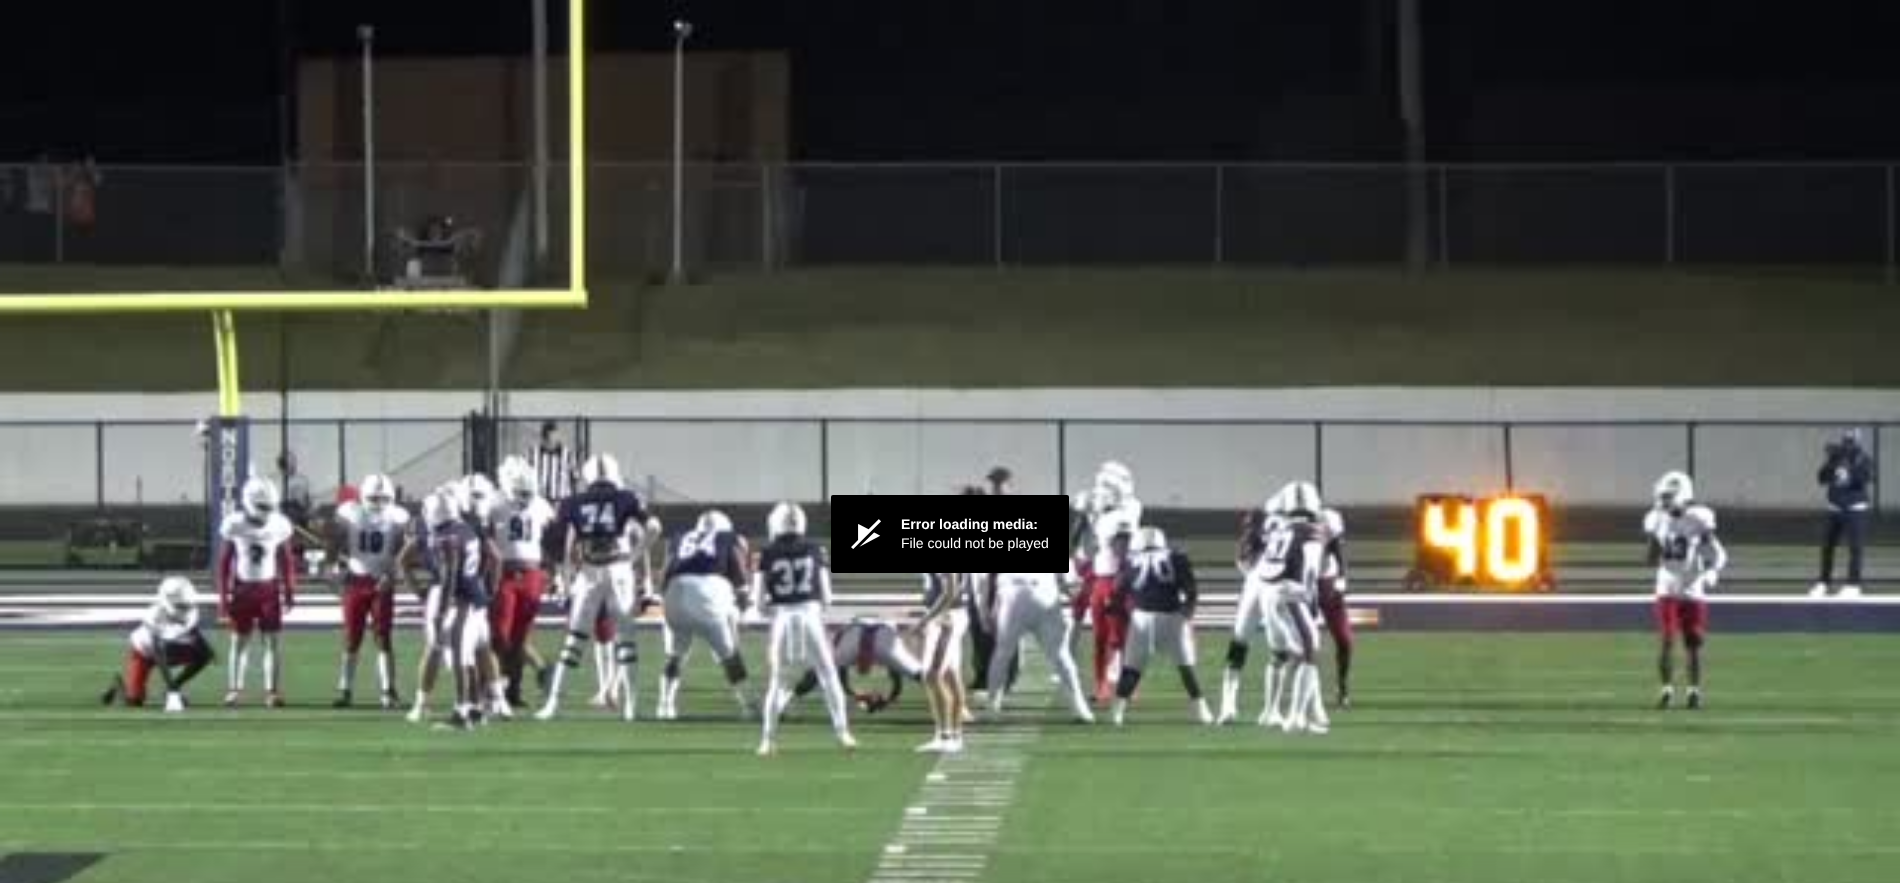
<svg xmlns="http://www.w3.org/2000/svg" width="1900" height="883">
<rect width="100%" height="100%" fill="#fff"/>
<image x="0" y="0" width="1900" height="883" href="media/1.png"/>
<rect x="831" y="495" width="238" height="78" rx="2" fill="#000"/>
<image x="851" y="519" width="30" height="30" href="media/2.png"/>
<text x="901" y="529" style="font-family:Liberation Sans;font-size:14px;font-weight:bold;fill:#fff">Error loading media:</text>
<text x="901" y="548" style="font-family:Liberation Sans;font-size:14px;fill:#fff">File could not be played</text>
</svg>
